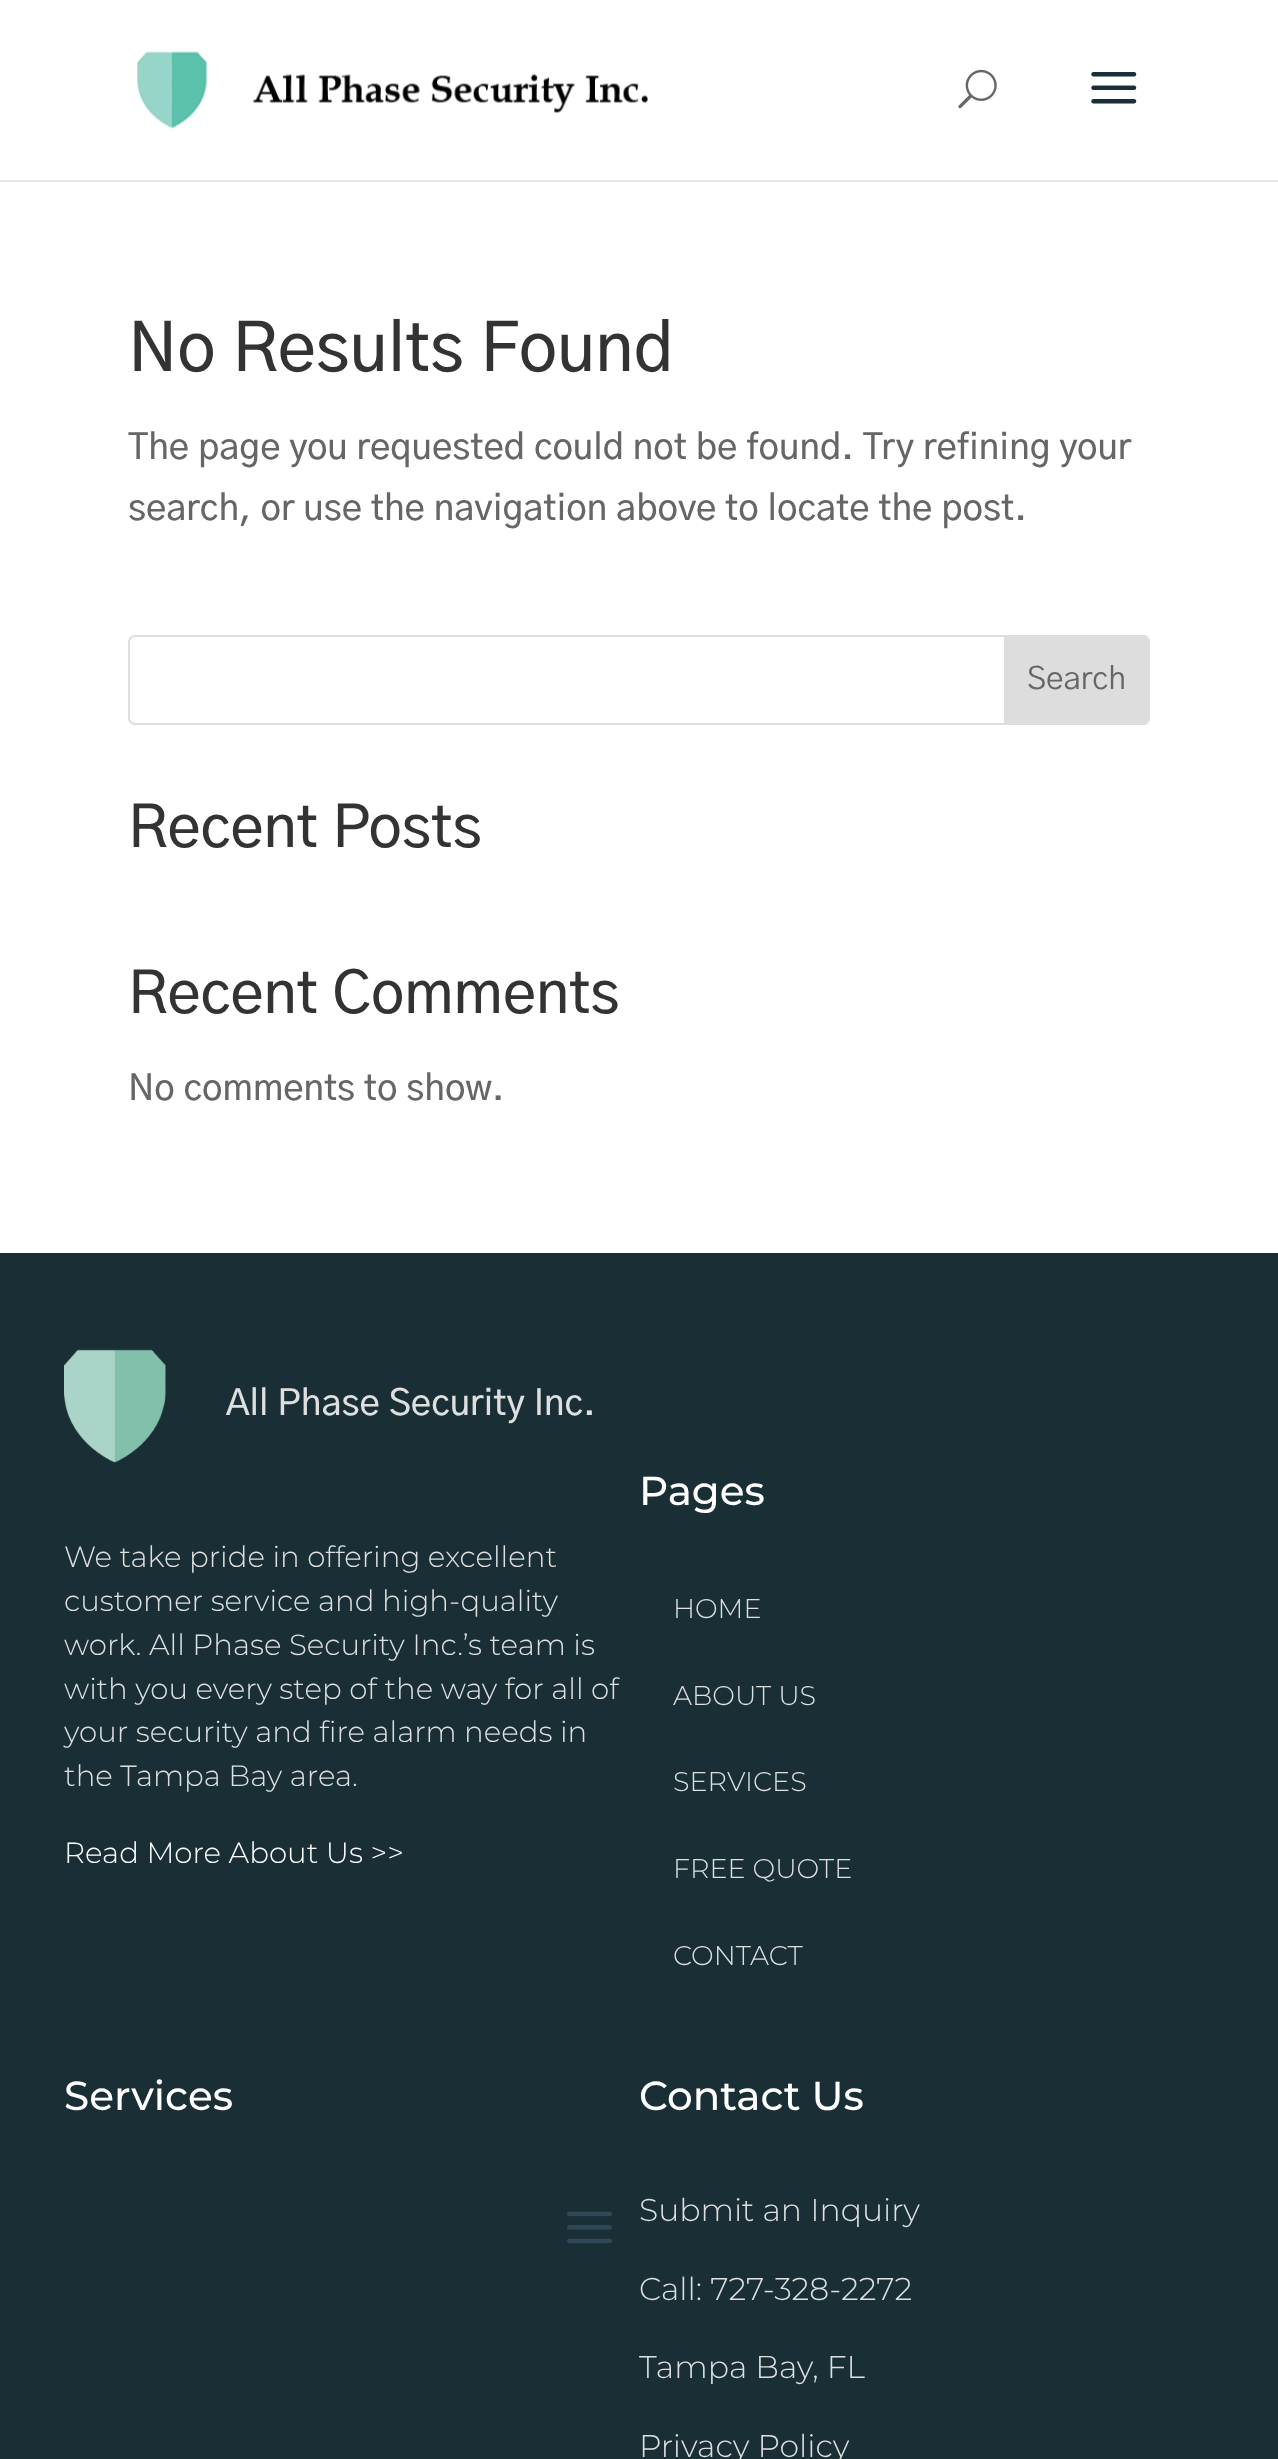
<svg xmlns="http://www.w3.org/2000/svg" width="1278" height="2459">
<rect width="100%" height="100%" fill="#fff"/>
<rect y="180" width="1278" height="2" fill="#e6e6e6"/>
<image x="137" y="51" width="511" height="78" href="media/1.png"/>
<image x="958" y="69" width="39" height="40" href="media/2.png"/>
<image x="1091" y="72" width="46" height="32" href="media/3.png"/>
<text x="128" y="371" style="font-family:'Gothic A1';font-size:67.5px;font-weight:500;fill:#333">No Results Found</text>
<text x="128" y="459" style="font-family:'Gothic A1';font-size:36px;font-weight:500;fill:#666">The page you requested could not be found. Try refining your</text>
<text x="128" y="520" style="font-family:'Gothic A1';font-size:36px;font-weight:500;fill:#666">search, or use the navigation above to locate the post.</text>
<rect x="129" y="636" width="1020" height="88" rx="6" fill="none" stroke="#ddd" stroke-width="2"/>
<path d="M1005 636h138c3.5 0 6 2.5 6 6v76c0 3.5-2.5 6-6 6h-138z" fill="#ddd" stroke="#ddd" stroke-width="2"/>
<text x="1027" y="689" style="font-family:'Gothic A1';font-size:31.5px;fill:#666">Search</text>
<text x="128" y="847" style="font-family:'Gothic A1';font-size:58.5px;font-weight:500;fill:#333">Recent Posts</text>
<text x="128" y="1013" style="font-family:'Gothic A1';font-size:58.5px;font-weight:500;fill:#333">Recent Comments</text>
<text x="128" y="1100" style="font-family:'Gothic A1';font-size:36px;font-weight:500;fill:#666">No comments to show.</text>
<rect y="1253" width="1278" height="1206" fill="#1a2e35"/>
<image x="64" y="1349" width="102" height="114" href="media/4.png"/>
<text x="226" y="1415" style="font-family:'Gothic A1';font-size:36px;font-weight:500;fill:#dedfdf">All Phase Security Inc.</text>
<text x="64" y="1567" style="font-family:Montserrat;font-size:29.25px;font-weight:100;fill:#dedfdf">We take pride in offering excellent</text>
<text x="64" y="1611" style="font-family:Montserrat;font-size:29.25px;font-weight:100;fill:#dedfdf">customer service and high-quality</text>
<text x="64" y="1655" style="font-family:Montserrat;font-size:29.25px;font-weight:100;fill:#dedfdf">work. All Phase Security Inc.’s team is</text>
<text x="64" y="1699" style="font-family:Montserrat;font-size:29.25px;font-weight:100;fill:#dedfdf">with you every step of the way for all of</text>
<text x="64" y="1742" style="font-family:Montserrat;font-size:29.25px;font-weight:100;fill:#dedfdf">your security and fire alarm needs in</text>
<text x="64" y="1786" style="font-family:Montserrat;font-size:29.25px;font-weight:100;fill:#dedfdf">the Tampa Bay area.</text>
<text x="64" y="1863" style="font-family:Montserrat;font-size:29.25px;font-weight:100;fill:#fff">Read More About Us &gt;&gt;</text>
<text x="639" y="1505" style="font-family:'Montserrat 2';font-size:40.5px;font-weight:100;fill:#fff">Pages</text>
<text x="673" y="1618" style="font-family:Montserrat;font-size:27px;font-weight:100;fill:#dedfdf">HOME</text>
<text x="673" y="1705" style="font-family:Montserrat;font-size:27px;font-weight:100;fill:#dedfdf">ABOUT US</text>
<text x="673" y="1791" style="font-family:Montserrat;font-size:27px;font-weight:100;fill:#dedfdf">SERVICES</text>
<text x="673" y="1878" style="font-family:Montserrat;font-size:27px;font-weight:100;fill:#dedfdf">FREE QUOTE</text>
<text x="673" y="1965" style="font-family:Montserrat;font-size:27px;font-weight:100;fill:#dedfdf">CONTACT</text>
<text x="64" y="2110" style="font-family:'Montserrat 2';font-size:40.5px;font-weight:100;fill:#fff">Services</text>
<image x="567" y="2211" width="45" height="33" href="media/5.png"/>
<text x="639" y="2110" style="font-family:'Montserrat 2';font-size:40.5px;font-weight:100;fill:#fff">Contact Us</text>
<text x="639" y="2221" style="font-family:Montserrat;font-size:31.5px;font-weight:100;fill:#dedfdf">Submit an Inquiry</text>
<text x="639" y="2300" style="font-family:Montserrat;font-size:31.5px;font-weight:100;fill:#dedfdf">Call: 727-328-2272</text>
<text x="639" y="2378" style="font-family:Montserrat;font-size:31.5px;font-weight:100;fill:#dedfdf">Tampa Bay, FL</text>
<text x="639" y="2457" style="font-family:Montserrat;font-size:31.5px;font-weight:100;fill:#dedfdf">Privacy Policy</text>
</svg>
